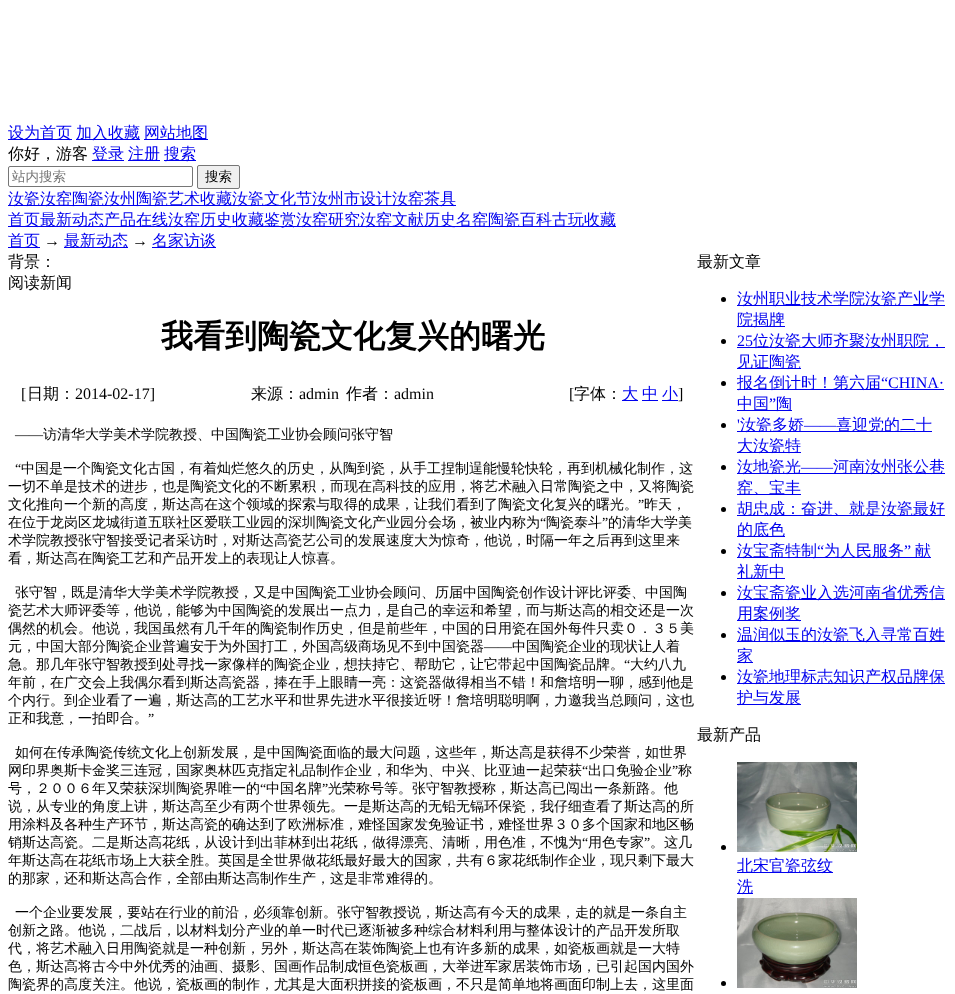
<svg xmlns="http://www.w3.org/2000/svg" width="955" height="994">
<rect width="100%" height="100%" fill="#fff"/>
<rect x="8" y="139" width="64" height="1" fill="#00e"/>
<text x="8" y="138" style="font-family:WenQuanYi Zen Hei;font-size:16px;font-weight:500;fill:#00e">设为首页</text>
<rect x="76" y="139" width="64" height="1" fill="#00e"/>
<text x="76" y="138" style="font-family:WenQuanYi Zen Hei;font-size:16px;font-weight:500;fill:#00e">加入收藏</text>
<rect x="144" y="139" width="64" height="1" fill="#00e"/>
<text x="144" y="138" style="font-family:WenQuanYi Zen Hei;font-size:16px;font-weight:500;fill:#00e">网站地图</text>
<text x="8" y="159" style="font-family:WenQuanYi Zen Hei;font-size:16px;font-weight:500;fill:#000">你好，游客</text>
<rect x="92" y="160" width="32" height="1" fill="#00e"/>
<text x="92" y="159" style="font-family:WenQuanYi Zen Hei;font-size:16px;font-weight:500;fill:#00e">登录</text>
<rect x="128" y="160" width="32" height="1" fill="#00e"/>
<text x="128" y="159" style="font-family:WenQuanYi Zen Hei;font-size:16px;font-weight:500;fill:#00e">注册</text>
<rect x="164" y="160" width="32" height="1" fill="#00e"/>
<text x="164" y="159" style="font-family:WenQuanYi Zen Hei;font-size:16px;font-weight:500;fill:#00e">搜索</text>
<rect x="8.5" y="166.5" width="184" height="20" rx="1.5" fill="none" stroke="#767676"/>
<text x="12" y="181" style="font-family:WenQuanYi Zen Hei;font-size:13.5px;font-weight:500;fill:#757575">站内搜索</text>
<rect x="197.5" y="165.5" width="42" height="23" rx="1.5" fill="#efefef" stroke="#767676"/>
<text x="205" y="181" style="font-family:WenQuanYi Zen Hei;font-size:13.5px;font-weight:500;fill:#000">搜索</text>
<rect x="8" y="205" width="448" height="1" fill="#00e"/>
<text x="8" y="204" style="font-family:WenQuanYi Zen Hei;font-size:16px;font-weight:500;fill:#00e">汝瓷汝窑陶瓷汝州陶瓷艺术收藏汝瓷文化节汝州市设计汝窑茶具</text>
<rect x="8" y="226" width="608" height="1" fill="#00e"/>
<text x="8" y="225" style="font-family:WenQuanYi Zen Hei;font-size:16px;font-weight:500;fill:#00e">首页最新动态产品在线汝窑历史收藏鉴赏汝窑研究汝窑文献历史名窑陶瓷百科古玩收藏</text>
<rect x="8" y="247" width="32" height="1" fill="#00e"/>
<text x="8" y="246" style="font-family:WenQuanYi Zen Hei;font-size:16px;font-weight:500;fill:#00e">首页</text>
<text x="44" y="246" style="font-family:Liberation Serif;font-size:16px;fill:#000">→</text>
<rect x="64" y="247" width="64" height="1" fill="#00e"/>
<text x="64" y="246" style="font-family:WenQuanYi Zen Hei;font-size:16px;font-weight:500;fill:#00e">最新动态</text>
<text x="132" y="246" style="font-family:Liberation Serif;font-size:16px;fill:#000">→</text>
<rect x="152" y="247" width="64" height="1" fill="#00e"/>
<text x="152" y="246" style="font-family:WenQuanYi Zen Hei;font-size:16px;font-weight:500;fill:#00e">名家访谈</text>
<text x="8" y="267" style="font-family:WenQuanYi Zen Hei;font-size:16px;font-weight:500;fill:#000">背景：</text>
<text x="8" y="288" style="font-family:WenQuanYi Zen Hei;font-size:16px;font-weight:500;fill:#000">阅读新闻</text>
<text x="161" y="347" style="font-family:WenQuanYi Zen Hei;font-size:32px;font-weight:bold;fill:#000">我看到陶瓷文化复兴的曙光</text>
<text x="21" y="399" style="font-family:Liberation Serif;font-size:16px;fill:#000">[</text>
<text x="27" y="399" style="font-family:WenQuanYi Zen Hei;font-size:16px;font-weight:500;fill:#000">日期：</text>
<text x="75" y="399" style="font-family:Liberation Serif;font-size:16px;fill:#000">2014-02-17]</text>
<text x="251" y="399" style="font-family:WenQuanYi Zen Hei;font-size:16px;font-weight:500;fill:#000">来源：</text>
<text x="299" y="399" style="font-family:Liberation Serif;font-size:16px;fill:#000">admin</text>
<text x="346" y="399" style="font-family:WenQuanYi Zen Hei;font-size:16px;font-weight:500;fill:#000">作者：</text>
<text x="394" y="399" style="font-family:Liberation Serif;font-size:16px;fill:#000">admin</text>
<text x="569" y="399" style="font-family:Liberation Serif;font-size:16px;fill:#000">[</text>
<text x="574" y="399" style="font-family:WenQuanYi Zen Hei;font-size:16px;font-weight:500;fill:#000">字体：</text>
<rect x="622" y="400" width="16" height="1" fill="#00e"/>
<text x="622" y="399" style="font-family:WenQuanYi Zen Hei;font-size:16px;font-weight:500;fill:#00e">大</text>
<rect x="642" y="400" width="16" height="1" fill="#00e"/>
<text x="642" y="399" style="font-family:WenQuanYi Zen Hei;font-size:16px;font-weight:500;fill:#00e">中</text>
<rect x="662" y="400" width="16" height="1" fill="#00e"/>
<text x="662" y="399" style="font-family:WenQuanYi Zen Hei;font-size:16px;font-weight:500;fill:#00e">小</text>
<text x="678" y="399" style="font-family:Liberation Serif;font-size:16px;fill:#000">]</text>
<text x="15" y="439" style="font-family:Liberation Serif;font-size:14px;fill:#000">——</text>
<text x="43" y="439" style="font-family:WenQuanYi Zen Hei;font-size:14px;font-weight:500;fill:#000">访清华大学美术学院教授、中国陶瓷工业协会顾问张守智</text>
<text x="15" y="473" style="font-family:Liberation Serif;font-size:14px;fill:#000">“</text>
<text x="21" y="473" style="font-family:WenQuanYi Zen Hei;font-size:14px;font-weight:500;fill:#000">中国是一个陶瓷文化古国，有着灿烂悠久的历史，从陶到瓷，从手工捏制逞能慢轮快轮，再到机械化制作，这</text>
<text x="8" y="491" style="font-family:WenQuanYi Zen Hei;font-size:14px;font-weight:500;fill:#000">一切不单是技术的进步，也是陶瓷文化的不断累积，而现在高科技的应用，将艺术融入日常陶瓷之中，又将陶瓷</text>
<text x="8" y="509" style="font-family:WenQuanYi Zen Hei;font-size:14px;font-weight:500;fill:#000">文化推向一个新的高度，斯达高在这个领域的探索与取得的成果，让我们看到了陶瓷文化复兴的曙光。</text>
<text x="638" y="509" style="font-family:Liberation Serif;font-size:14px;fill:#000">”</text>
<text x="644" y="509" style="font-family:WenQuanYi Zen Hei;font-size:14px;font-weight:500;fill:#000">昨天，</text>
<text x="8" y="527" style="font-family:WenQuanYi Zen Hei;font-size:14px;font-weight:500;fill:#000">在位于龙岗区龙城街道五联社区爱联工业园的深圳陶瓷文化产业园分会场，被业内称为</text>
<text x="540" y="527" style="font-family:Liberation Serif;font-size:14px;fill:#000">“</text>
<text x="546" y="527" style="font-family:WenQuanYi Zen Hei;font-size:14px;font-weight:500;fill:#000">陶瓷泰斗</text>
<text x="602" y="527" style="font-family:Liberation Serif;font-size:14px;fill:#000">”</text>
<text x="608" y="527" style="font-family:WenQuanYi Zen Hei;font-size:14px;font-weight:500;fill:#000">的清华大学美</text>
<text x="8" y="545" style="font-family:WenQuanYi Zen Hei;font-size:14px;font-weight:500;fill:#000">术学院教授张守智接受记者采访时，对斯达高瓷艺公司的发展速度大为惊奇，他说，时隔一年之后再到这里来</text>
<text x="8" y="563" style="font-family:WenQuanYi Zen Hei;font-size:14px;font-weight:500;fill:#000">看，斯达高在陶瓷工艺和产品开发上的表现让人惊喜。</text>
<text x="15" y="597" style="font-family:WenQuanYi Zen Hei;font-size:14px;font-weight:500;fill:#000">张守智，既是清华大学美术学院教授，又是中国陶瓷工业协会顾问、历届中国陶瓷创作设计评比评委、中国陶</text>
<text x="8" y="615" style="font-family:WenQuanYi Zen Hei;font-size:14px;font-weight:500;fill:#000">瓷艺术大师评委等，他说，能够为中国陶瓷的发展出一点力，是自己的幸运和希望，而与斯达高的相交还是一次</text>
<text x="8" y="633" style="font-family:WenQuanYi Zen Hei;font-size:14px;font-weight:500;fill:#000">偶然的机会。他说，我国虽然有几千年的陶瓷制作历史，但是前些年，中国的日用瓷在国外每件只卖０．３５美</text>
<text x="8" y="651" style="font-family:WenQuanYi Zen Hei;font-size:14px;font-weight:500;fill:#000">元，中国大部分陶瓷企业普遍安于为外国打工，外国高级商场见不到中国瓷器</text>
<text x="484" y="651" style="font-family:Liberation Serif;font-size:14px;fill:#000">——</text>
<text x="512" y="651" style="font-family:WenQuanYi Zen Hei;font-size:14px;font-weight:500;fill:#000">中国陶瓷企业的现状让人着</text>
<text x="8" y="669" style="font-family:WenQuanYi Zen Hei;font-size:14px;font-weight:500;fill:#000">急。那几年张守智教授到处寻找一家像样的陶瓷企业，想扶持它、帮助它，让它带起中国陶瓷品牌。</text>
<text x="624" y="669" style="font-family:Liberation Serif;font-size:14px;fill:#000">“</text>
<text x="630" y="669" style="font-family:WenQuanYi Zen Hei;font-size:14px;font-weight:500;fill:#000">大约八九</text>
<text x="8" y="687" style="font-family:WenQuanYi Zen Hei;font-size:14px;font-weight:500;fill:#000">年前，在广交会上我偶尔看到斯达高瓷器，捧在手上眼睛一亮：这瓷器做得相当不错！和詹培明一聊，感到他是</text>
<text x="8" y="705" style="font-family:WenQuanYi Zen Hei;font-size:14px;font-weight:500;fill:#000">个内行。到企业看了一遍，斯达高的工艺水平和世界先进水平很接近呀！詹培明聪明啊，力邀我当总顾问，这也</text>
<text x="8" y="723" style="font-family:WenQuanYi Zen Hei;font-size:14px;font-weight:500;fill:#000">正和我意，一拍即合。</text>
<text x="148" y="723" style="font-family:Liberation Serif;font-size:14px;fill:#000">”</text>
<text x="15" y="757" style="font-family:WenQuanYi Zen Hei;font-size:14px;font-weight:500;fill:#000">如何在传承陶瓷传统文化上创新发展，是中国陶瓷面临的最大问题，这些年，斯达高是获得不少荣誉，如世界</text>
<text x="8" y="775" style="font-family:WenQuanYi Zen Hei;font-size:14px;font-weight:500;fill:#000">网印界奥斯卡金奖三连冠，国家奥林匹克指定礼品制作企业，和华为、中兴、比亚迪一起荣获</text>
<text x="582" y="775" style="font-family:Liberation Serif;font-size:14px;fill:#000">“</text>
<text x="588" y="775" style="font-family:WenQuanYi Zen Hei;font-size:14px;font-weight:500;fill:#000">出口免验企业</text>
<text x="672" y="775" style="font-family:Liberation Serif;font-size:14px;fill:#000">”</text>
<text x="678" y="775" style="font-family:WenQuanYi Zen Hei;font-size:14px;font-weight:500;fill:#000">称</text>
<text x="8" y="793" style="font-family:WenQuanYi Zen Hei;font-size:14px;font-weight:500;fill:#000">号，２００６年又荣获深圳陶瓷界唯一的</text>
<text x="260" y="793" style="font-family:Liberation Serif;font-size:14px;fill:#000">“</text>
<text x="266" y="793" style="font-family:WenQuanYi Zen Hei;font-size:14px;font-weight:500;fill:#000">中国名牌</text>
<text x="322" y="793" style="font-family:Liberation Serif;font-size:14px;fill:#000">”</text>
<text x="328" y="793" style="font-family:WenQuanYi Zen Hei;font-size:14px;font-weight:500;fill:#000">光荣称号等。张守智教授称，斯达高已闯出一条新路。他</text>
<text x="8" y="811" style="font-family:WenQuanYi Zen Hei;font-size:14px;font-weight:500;fill:#000">说，从专业的角度上讲，斯达高至少有两个世界领先。一是斯达高的无铅无镉环保瓷，我仔细查看了斯达高的所</text>
<text x="8" y="829" style="font-family:WenQuanYi Zen Hei;font-size:14px;font-weight:500;fill:#000">用涂料及各种生产环节，斯达高瓷的确达到了欧洲标准，难怪国家发免验证书，难怪世界３０多个国家和地区畅</text>
<text x="8" y="847" style="font-family:WenQuanYi Zen Hei;font-size:14px;font-weight:500;fill:#000">销斯达高瓷。二是斯达高花纸，从设计到出菲林到出花纸，做得漂亮、清晰，用色准，不愧为</text>
<text x="582" y="847" style="font-family:Liberation Serif;font-size:14px;fill:#000">“</text>
<text x="588" y="847" style="font-family:WenQuanYi Zen Hei;font-size:14px;font-weight:500;fill:#000">用色专家</text>
<text x="644" y="847" style="font-family:Liberation Serif;font-size:14px;fill:#000">”</text>
<text x="650" y="847" style="font-family:WenQuanYi Zen Hei;font-size:14px;font-weight:500;fill:#000">。这几</text>
<text x="8" y="865" style="font-family:WenQuanYi Zen Hei;font-size:14px;font-weight:500;fill:#000">年斯达高在花纸市场上大获全胜。英国是全世界做花纸最好最大的国家，共有６家花纸制作企业，现只剩下最大</text>
<text x="8" y="883" style="font-family:WenQuanYi Zen Hei;font-size:14px;font-weight:500;fill:#000">的那家，还和斯达高合作，全部由斯达高制作生产，这是非常难得的。</text>
<text x="15" y="917" style="font-family:WenQuanYi Zen Hei;font-size:14px;font-weight:500;fill:#000">一个企业要发展，要站在行业的前沿，必须靠创新。张守智教授说，斯达高有今天的成果，走的就是一条自主</text>
<text x="8" y="935" style="font-family:WenQuanYi Zen Hei;font-size:14px;font-weight:500;fill:#000">创新之路。他说，二战后，以材料划分产业的单一时代已逐渐被多种综合材料利用与整体设计的产品开发所取</text>
<text x="8" y="953" style="font-family:WenQuanYi Zen Hei;font-size:14px;font-weight:500;fill:#000">代，将艺术融入日用陶瓷就是一种创新，另外，斯达高在装饰陶瓷上也有许多新的成果，如瓷板画就是一大特</text>
<text x="8" y="971" style="font-family:WenQuanYi Zen Hei;font-size:14px;font-weight:500;fill:#000">色，斯达高将古今中外优秀的油画、摄影、国画作品制成恒色瓷板画，大举进军家居装饰市场，已引起国内国外</text>
<text x="8" y="989" style="font-family:WenQuanYi Zen Hei;font-size:14px;font-weight:500;fill:#000">陶瓷界的高度关注。他说，瓷板画的制作，尤其是大面积拼接的瓷板画，不只是简单地将画面印制上去，这里面</text>
<text x="697" y="267" style="font-family:WenQuanYi Zen Hei;font-size:16px;font-weight:500;fill:#000">最新文章</text>
<circle cx="723.5" cy="299.5" r="2.5" fill="#000"/>
<rect x="737" y="305" width="208" height="1" fill="#00e"/>
<text x="737" y="304" style="font-family:WenQuanYi Zen Hei;font-size:16px;font-weight:500;fill:#00e">汝州职业技术学院汝瓷产业学</text>
<rect x="737" y="326" width="48" height="1" fill="#00e"/>
<text x="737" y="325" style="font-family:WenQuanYi Zen Hei;font-size:16px;font-weight:500;fill:#00e">院揭牌</text>
<circle cx="723.5" cy="341.5" r="2.5" fill="#000"/>
<text x="737" y="346" style="font-family:Liberation Serif;font-size:16px;fill:#00e">25</text>
<rect x="737" y="347" width="208" height="1" fill="#00e"/>
<text x="753" y="346" style="font-family:WenQuanYi Zen Hei;font-size:16px;font-weight:500;fill:#00e">位汝瓷大师齐聚汝州职院，</text>
<rect x="737" y="368" width="64" height="1" fill="#00e"/>
<text x="737" y="367" style="font-family:WenQuanYi Zen Hei;font-size:16px;font-weight:500;fill:#00e">见证陶瓷</text>
<circle cx="723.5" cy="383.5" r="2.5" fill="#000"/>
<rect x="737" y="389" width="207" height="1" fill="#00e"/>
<text x="737" y="388" style="font-family:WenQuanYi Zen Hei;font-size:16px;font-weight:500;fill:#00e">报名倒计时！第六届</text>
<text x="881" y="388" style="font-family:Liberation Serif;font-size:16px;fill:#00e">“CHINA·</text>
<rect x="737" y="410" width="55" height="1" fill="#00e"/>
<text x="737" y="409" style="font-family:WenQuanYi Zen Hei;font-size:16px;font-weight:500;fill:#00e">中国</text>
<text x="769" y="409" style="font-family:Liberation Serif;font-size:16px;fill:#00e">”</text>
<text x="776" y="409" style="font-family:WenQuanYi Zen Hei;font-size:16px;font-weight:500;fill:#00e">陶</text>
<text x="737" y="430" style="font-family:Liberation Serif;font-size:16px;fill:#00e">'</text>
<rect x="737" y="431" width="195" height="1" fill="#00e"/>
<text x="740" y="430" style="font-family:WenQuanYi Zen Hei;font-size:16px;font-weight:500;fill:#00e">汝瓷多娇</text>
<text x="836" y="430" style="font-family:WenQuanYi Zen Hei;font-size:16px;font-weight:500;fill:#00e">喜迎党的二十</text>
<circle cx="723.5" cy="425.5" r="2.5" fill="#000"/>
<text x="804" y="430" style="font-family:Liberation Serif;font-size:16px;fill:#00e">——</text>
<rect x="737" y="452" width="64" height="1" fill="#00e"/>
<text x="737" y="451" style="font-family:WenQuanYi Zen Hei;font-size:16px;font-weight:500;fill:#00e">大汝瓷特</text>
<circle cx="723.5" cy="467.5" r="2.5" fill="#000"/>
<rect x="737" y="473" width="208" height="1" fill="#00e"/>
<text x="737" y="472" style="font-family:WenQuanYi Zen Hei;font-size:16px;font-weight:500;fill:#00e">汝地瓷光</text>
<text x="801" y="472" style="font-family:Liberation Serif;font-size:16px;fill:#00e">——</text>
<text x="833" y="472" style="font-family:WenQuanYi Zen Hei;font-size:16px;font-weight:500;fill:#00e">河南汝州张公巷</text>
<rect x="737" y="494" width="64" height="1" fill="#00e"/>
<text x="737" y="493" style="font-family:WenQuanYi Zen Hei;font-size:16px;font-weight:500;fill:#00e">窑、宝丰</text>
<circle cx="723.5" cy="509.5" r="2.5" fill="#000"/>
<rect x="737" y="515" width="208" height="1" fill="#00e"/>
<text x="737" y="514" style="font-family:WenQuanYi Zen Hei;font-size:16px;font-weight:500;fill:#00e">胡忠成：奋进、就是汝瓷最好</text>
<rect x="737" y="536" width="48" height="1" fill="#00e"/>
<text x="737" y="535" style="font-family:WenQuanYi Zen Hei;font-size:16px;font-weight:500;fill:#00e">的底色</text>
<rect x="737" y="557" width="194" height="1" fill="#00e"/>
<text x="737" y="556" style="font-family:WenQuanYi Zen Hei;font-size:16px;font-weight:500;fill:#00e">汝宝斋特制</text>
<text x="817" y="556" style="font-family:Liberation Serif;font-size:16px;fill:#00e">“</text>
<text x="824" y="556" style="font-family:WenQuanYi Zen Hei;font-size:16px;font-weight:500;fill:#00e">为人民服务</text>
<text x="904" y="556" style="font-family:Liberation Serif;font-size:16px;fill:#00e">”</text>
<text x="915" y="556" style="font-family:WenQuanYi Zen Hei;font-size:16px;font-weight:500;fill:#00e">献</text>
<circle cx="723.5" cy="551.5" r="2.5" fill="#000"/>
<rect x="737" y="578" width="48" height="1" fill="#00e"/>
<text x="737" y="577" style="font-family:WenQuanYi Zen Hei;font-size:16px;font-weight:500;fill:#00e">礼新中</text>
<circle cx="723.5" cy="593.5" r="2.5" fill="#000"/>
<rect x="737" y="599" width="208" height="1" fill="#00e"/>
<text x="737" y="598" style="font-family:WenQuanYi Zen Hei;font-size:16px;font-weight:500;fill:#00e">汝宝斋瓷业入选河南省优秀信</text>
<rect x="737" y="620" width="64" height="1" fill="#00e"/>
<text x="737" y="619" style="font-family:WenQuanYi Zen Hei;font-size:16px;font-weight:500;fill:#00e">用案例奖</text>
<circle cx="723.5" cy="635.5" r="2.5" fill="#000"/>
<rect x="737" y="641" width="208" height="1" fill="#00e"/>
<text x="737" y="640" style="font-family:WenQuanYi Zen Hei;font-size:16px;font-weight:500;fill:#00e">温润似玉的汝瓷飞入寻常百姓</text>
<rect x="737" y="662" width="16" height="1" fill="#00e"/>
<text x="737" y="661" style="font-family:WenQuanYi Zen Hei;font-size:16px;font-weight:500;fill:#00e">家</text>
<circle cx="723.5" cy="677.5" r="2.5" fill="#000"/>
<rect x="737" y="683" width="208" height="1" fill="#00e"/>
<text x="737" y="682" style="font-family:WenQuanYi Zen Hei;font-size:16px;font-weight:500;fill:#00e">汝瓷地理标志知识产权品牌保</text>
<rect x="737" y="704" width="64" height="1" fill="#00e"/>
<text x="737" y="703" style="font-family:WenQuanYi Zen Hei;font-size:16px;font-weight:500;fill:#00e">护与发展</text>
<text x="697" y="740" style="font-family:WenQuanYi Zen Hei;font-size:16px;font-weight:500;fill:#000">最新产品</text>
<circle cx="723.5" cy="847.5" r="2.5" fill="#000"/>
<image x="737" y="762" width="120" height="90" href="media/1.png"/>
<rect x="737" y="872" width="96" height="1" fill="#00e"/>
<text x="737" y="871" style="font-family:WenQuanYi Zen Hei;font-size:16px;font-weight:500;fill:#00e">北宋官瓷弦纹</text>
<rect x="737" y="893" width="16" height="1" fill="#00e"/>
<text x="737" y="892" style="font-family:WenQuanYi Zen Hei;font-size:16px;font-weight:500;fill:#00e">洗</text>
<circle cx="723.5" cy="983.5" r="2.5" fill="#000"/>
<image x="737" y="898" width="120" height="90" href="media/2.png"/>
</svg>
